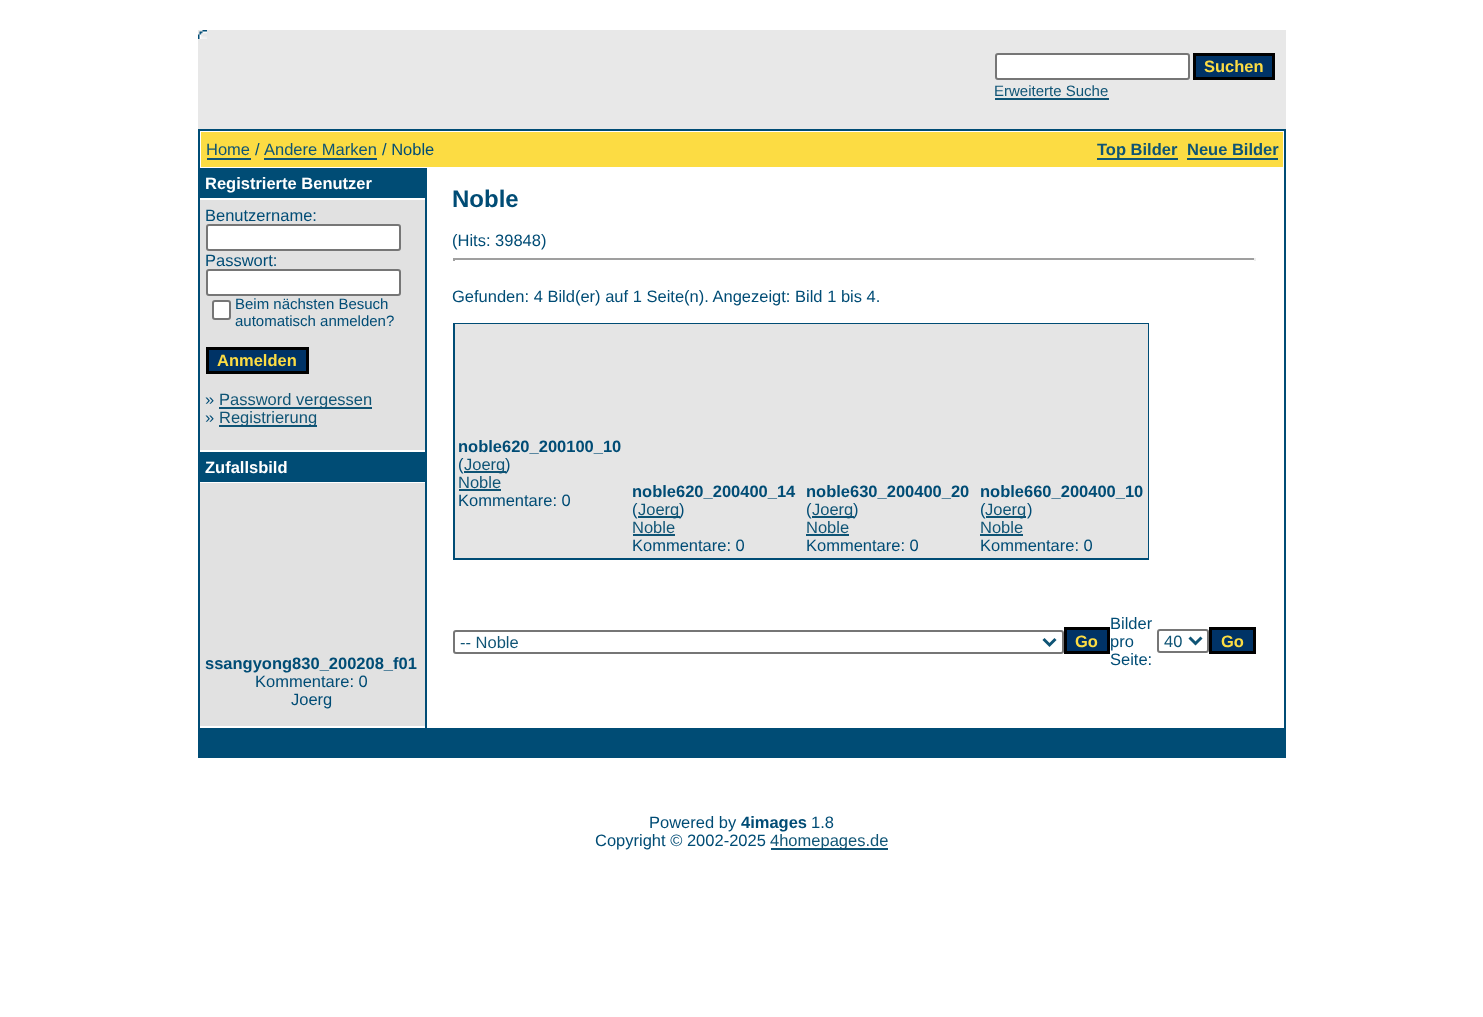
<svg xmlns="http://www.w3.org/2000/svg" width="1483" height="1017">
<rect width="100%" height="100%" fill="#fff"/>
<rect x="198" y="30" width="1088" height="99" fill="#e8e8e8"/>
<image x="198" y="30" width="9" height="9" href="media/1.png"/>
<rect x="996" y="54" width="193" height="25" rx="2" fill="#fff" stroke="#767676" stroke-width="2"/>
<rect x="1194.5" y="54.5" width="79" height="24" fill="#036" stroke="#000" stroke-width="3"/>
<text x="1204" y="72" style="font-family:Liberation Sans;font-size:16.5px;font-weight:bold;fill:#fcdc43">Suchen</text>
<text x="994" y="96" style="font-family:Liberation Sans;font-size:15px;fill:#0f5475">Erweiterte Suche</text>
<rect x="995" y="98" width="114" height="2" fill="#0f5475"/>
<rect x="198" y="129" width="1088" height="629" fill="#004c75"/>
<rect x="200" y="131" width="1084" height="597" fill="#fff"/>
<rect x="201" y="132" width="1082" height="35" fill="#fcdc43"/>
<text x="206" y="155" style="font-family:Liberation Sans;font-size:16.5px;fill:#0f5475">Home</text>
<rect x="207" y="158" width="44" height="2" fill="#0f5475"/>
<text x="255" y="155" style="font-family:Liberation Sans;font-size:16.5px;fill:#004c75">/</text>
<text x="264" y="155" style="font-family:Liberation Sans;font-size:16.5px;fill:#0f5475">Andere Marken</text>
<rect x="264" y="158" width="113" height="2" fill="#0f5475"/>
<text x="382" y="155" style="font-family:Liberation Sans;font-size:16.5px;fill:#004c75">/ Noble</text>
<rect x="1097" y="158" width="81" height="2" fill="#0f5475"/>
<text x="1097" y="155" style="font-family:Liberation Sans;font-size:16.5px;font-weight:bold;fill:#0f5475">Top Bilder</text>
<text x="1187" y="155" style="font-family:Liberation Sans;font-size:16.5px;font-weight:bold;fill:#0f5475">Neue Bilder</text>
<rect x="1187" y="158" width="91" height="2" fill="#0f5475"/>
<rect x="200" y="168" width="225" height="30" fill="#004c75"/>
<text x="205" y="189" style="font-family:Liberation Sans;font-size:16.5px;font-weight:bold;fill:#fff">Registrierte Benutzer</text>
<rect x="200" y="200" width="225" height="250" fill="#e1e1e1"/>
<text x="205" y="221" style="font-family:Liberation Sans;font-size:16.5px;fill:#004c75">Benutzername:</text>
<rect x="207" y="225" width="193" height="25" rx="2" fill="#fff" stroke="#767676" stroke-width="2"/>
<text x="205" y="266" style="font-family:Liberation Sans;font-size:16.5px;fill:#004c75">Passwort:</text>
<rect x="207" y="270" width="193" height="25" rx="2" fill="#fff" stroke="#767676" stroke-width="2"/>
<rect x="213" y="301" width="17" height="18" rx="2" fill="#fff" stroke="#767676" stroke-width="2"/>
<text x="235" y="309" style="font-family:Liberation Sans;font-size:15px;fill:#004c75">Beim nächsten Besuch</text>
<text x="235" y="326" style="font-family:Liberation Sans;font-size:15px;fill:#004c75">automatisch anmelden?</text>
<rect x="207.5" y="348.5" width="100" height="24" fill="#036" stroke="#000" stroke-width="3"/>
<text x="217" y="366" style="font-family:Liberation Sans;font-size:16.5px;font-weight:bold;fill:#fcdc43">Anmelden</text>
<text x="205" y="405" style="font-family:Liberation Sans;font-size:16.5px;fill:#004c75">»</text>
<rect x="219" y="407" width="153" height="2" fill="#0f5475"/>
<text x="219" y="405" style="font-family:Liberation Sans;font-size:16.5px;fill:#0f5475">Password vergessen</text>
<text x="205" y="423" style="font-family:Liberation Sans;font-size:16.5px;fill:#004c75">»</text>
<rect x="219" y="425" width="98" height="2" fill="#0f5475"/>
<text x="219" y="423" style="font-family:Liberation Sans;font-size:16.5px;fill:#0f5475">Registrierung</text>
<rect x="200" y="452" width="225" height="30" fill="#004c75"/>
<text x="205" y="473" style="font-family:Liberation Sans;font-size:16.5px;font-weight:bold;fill:#fff">Zufallsbild</text>
<rect x="200" y="483" width="225" height="243" fill="#e1e1e1"/>
<text x="205" y="669" style="font-family:Liberation Sans;font-size:16.5px;font-weight:bold;fill:#004c75">ssangyong830_200208_f01</text>
<text x="255" y="687" style="font-family:Liberation Sans;font-size:16.5px;fill:#004c75">Kommentare: 0</text>
<text x="291" y="705" style="font-family:Liberation Sans;font-size:16.5px;fill:#004c75">Joerg</text>
<rect x="425" y="168" width="2" height="560" fill="#004c75"/>
<text x="452" y="207" style="font-family:Liberation Sans;font-size:24px;font-weight:bold;fill:#004c75">Noble</text>
<text x="452" y="246" style="font-family:Liberation Sans;font-size:16.5px;fill:#004c75">(Hits: 39848)</text>
<rect x="453" y="258" width="803" height="2" fill="#9f9f9f"/>
<rect x="1254" y="258" width="2" height="3" fill="#eee"/>
<rect x="453" y="258" width="2" height="3" fill="#9f9f9f"/>
<text x="452" y="302" style="font-family:Liberation Sans;font-size:16.5px;fill:#004c75">Gefunden: 4 Bild(er) auf 1 Seite(n). Angezeigt: Bild 1 bis 4.</text>
<rect x="453" y="323" width="696" height="237" fill="#004c75"/>
<rect x="455" y="324" width="693" height="234" fill="#e5e5e5"/>
<text x="458" y="452" style="font-family:Liberation Sans;font-size:16.5px;font-weight:bold;fill:#004c75">noble620_200100_10</text>
<text x="458" y="470" style="font-family:Liberation Sans;font-size:16.5px;fill:#004c75">(</text>
<rect x="464" y="471" width="42" height="2" fill="#0f5475"/>
<text x="464" y="470" style="font-family:Liberation Sans;font-size:16.5px;fill:#0f5475">Joerg</text>
<text x="505" y="470" style="font-family:Liberation Sans;font-size:16.5px;fill:#004c75">)</text>
<text x="458" y="488" style="font-family:Liberation Sans;font-size:16.5px;fill:#0f5475">Noble</text>
<rect x="459" y="489" width="42" height="2" fill="#0f5475"/>
<text x="458" y="506" style="font-family:Liberation Sans;font-size:16.5px;fill:#004c75">Kommentare: 0</text>
<text x="632" y="497" style="font-family:Liberation Sans;font-size:16.5px;font-weight:bold;fill:#004c75">noble620_200400_14</text>
<text x="632" y="515" style="font-family:Liberation Sans;font-size:16.5px;fill:#004c75">(</text>
<rect x="638" y="516" width="42" height="2" fill="#0f5475"/>
<text x="638" y="515" style="font-family:Liberation Sans;font-size:16.5px;fill:#0f5475">Joerg</text>
<text x="679" y="515" style="font-family:Liberation Sans;font-size:16.5px;fill:#004c75">)</text>
<text x="632" y="533" style="font-family:Liberation Sans;font-size:16.5px;fill:#0f5475">Noble</text>
<rect x="633" y="534" width="42" height="2" fill="#0f5475"/>
<text x="632" y="551" style="font-family:Liberation Sans;font-size:16.5px;fill:#004c75">Kommentare: 0</text>
<text x="806" y="497" style="font-family:Liberation Sans;font-size:16.5px;font-weight:bold;fill:#004c75">noble630_200400_20</text>
<text x="806" y="515" style="font-family:Liberation Sans;font-size:16.5px;fill:#004c75">(</text>
<rect x="812" y="516" width="42" height="2" fill="#0f5475"/>
<text x="812" y="515" style="font-family:Liberation Sans;font-size:16.5px;fill:#0f5475">Joerg</text>
<text x="853" y="515" style="font-family:Liberation Sans;font-size:16.5px;fill:#004c75">)</text>
<text x="806" y="533" style="font-family:Liberation Sans;font-size:16.5px;fill:#0f5475">Noble</text>
<rect x="806" y="534" width="43" height="2" fill="#0f5475"/>
<text x="806" y="551" style="font-family:Liberation Sans;font-size:16.5px;fill:#004c75">Kommentare: 0</text>
<text x="980" y="497" style="font-family:Liberation Sans;font-size:16.5px;font-weight:bold;fill:#004c75">noble660_200400_10</text>
<text x="980" y="515" style="font-family:Liberation Sans;font-size:16.5px;fill:#004c75">(</text>
<rect x="986" y="516" width="40" height="2" fill="#0f5475"/>
<text x="985" y="515" style="font-family:Liberation Sans;font-size:16.5px;fill:#0f5475">Joerg</text>
<text x="1027" y="515" style="font-family:Liberation Sans;font-size:16.5px;fill:#004c75">)</text>
<text x="980" y="533" style="font-family:Liberation Sans;font-size:16.5px;fill:#0f5475">Noble</text>
<rect x="980" y="534" width="43" height="2" fill="#0f5475"/>
<text x="980" y="551" style="font-family:Liberation Sans;font-size:16.5px;fill:#004c75">Kommentare: 0</text>
<rect x="454" y="631" width="609" height="22" rx="2" fill="none" stroke="#767676" stroke-width="2"/>
<path d="M1043.5 639l6 6l6-6" fill="none" stroke="#0f5475" stroke-width="3"/>
<text x="460" y="648" style="font-family:Liberation Sans;font-size:16.5px;fill:#0f5475">-- Noble</text>
<rect x="1065.5" y="628.5" width="43" height="24" fill="#036" stroke="#000" stroke-width="3"/>
<text x="1075" y="647" style="font-family:Liberation Sans;font-size:16.5px;font-weight:bold;fill:#fcdc43">Go</text>
<text x="1110" y="629" style="font-family:Liberation Sans;font-size:16.5px;fill:#004c75">Bilder</text>
<text x="1110" y="647" style="font-family:Liberation Sans;font-size:16.5px;fill:#004c75">pro</text>
<text x="1110" y="665" style="font-family:Liberation Sans;font-size:16.5px;fill:#004c75">Seite:</text>
<rect x="1158" y="630" width="50" height="22" rx="2" fill="none" stroke="#767676" stroke-width="2"/>
<path d="M1189.5 637.5l6 6l6-6" fill="none" stroke="#0f5475" stroke-width="3"/>
<text x="1164" y="647" style="font-family:Liberation Sans;font-size:16.5px;fill:#0f5475">40</text>
<rect x="1210.5" y="628.5" width="44" height="24" fill="#036" stroke="#000" stroke-width="3"/>
<text x="1221" y="647" style="font-family:Liberation Sans;font-size:16.5px;font-weight:bold;fill:#fcdc43">Go</text>
<text x="649" y="828" style="font-family:Liberation Sans;font-size:16.5px;fill:#004c75">Powered by</text>
<text x="741" y="828" style="font-family:Liberation Sans;font-size:16.5px;font-weight:bold;fill:#004c75">4images</text>
<text x="811" y="828" style="font-family:Liberation Sans;font-size:16.5px;fill:#004c75">1.8</text>
<text x="595" y="846" style="font-family:Liberation Sans;font-size:16.5px;fill:#004c75">Copyright © 2002-2025</text>
<rect x="771" y="848" width="117" height="2" fill="#0f5475"/>
<text x="770" y="846" style="font-family:Liberation Sans;font-size:16.5px;fill:#0f5475">4homepages.de</text>
</svg>
